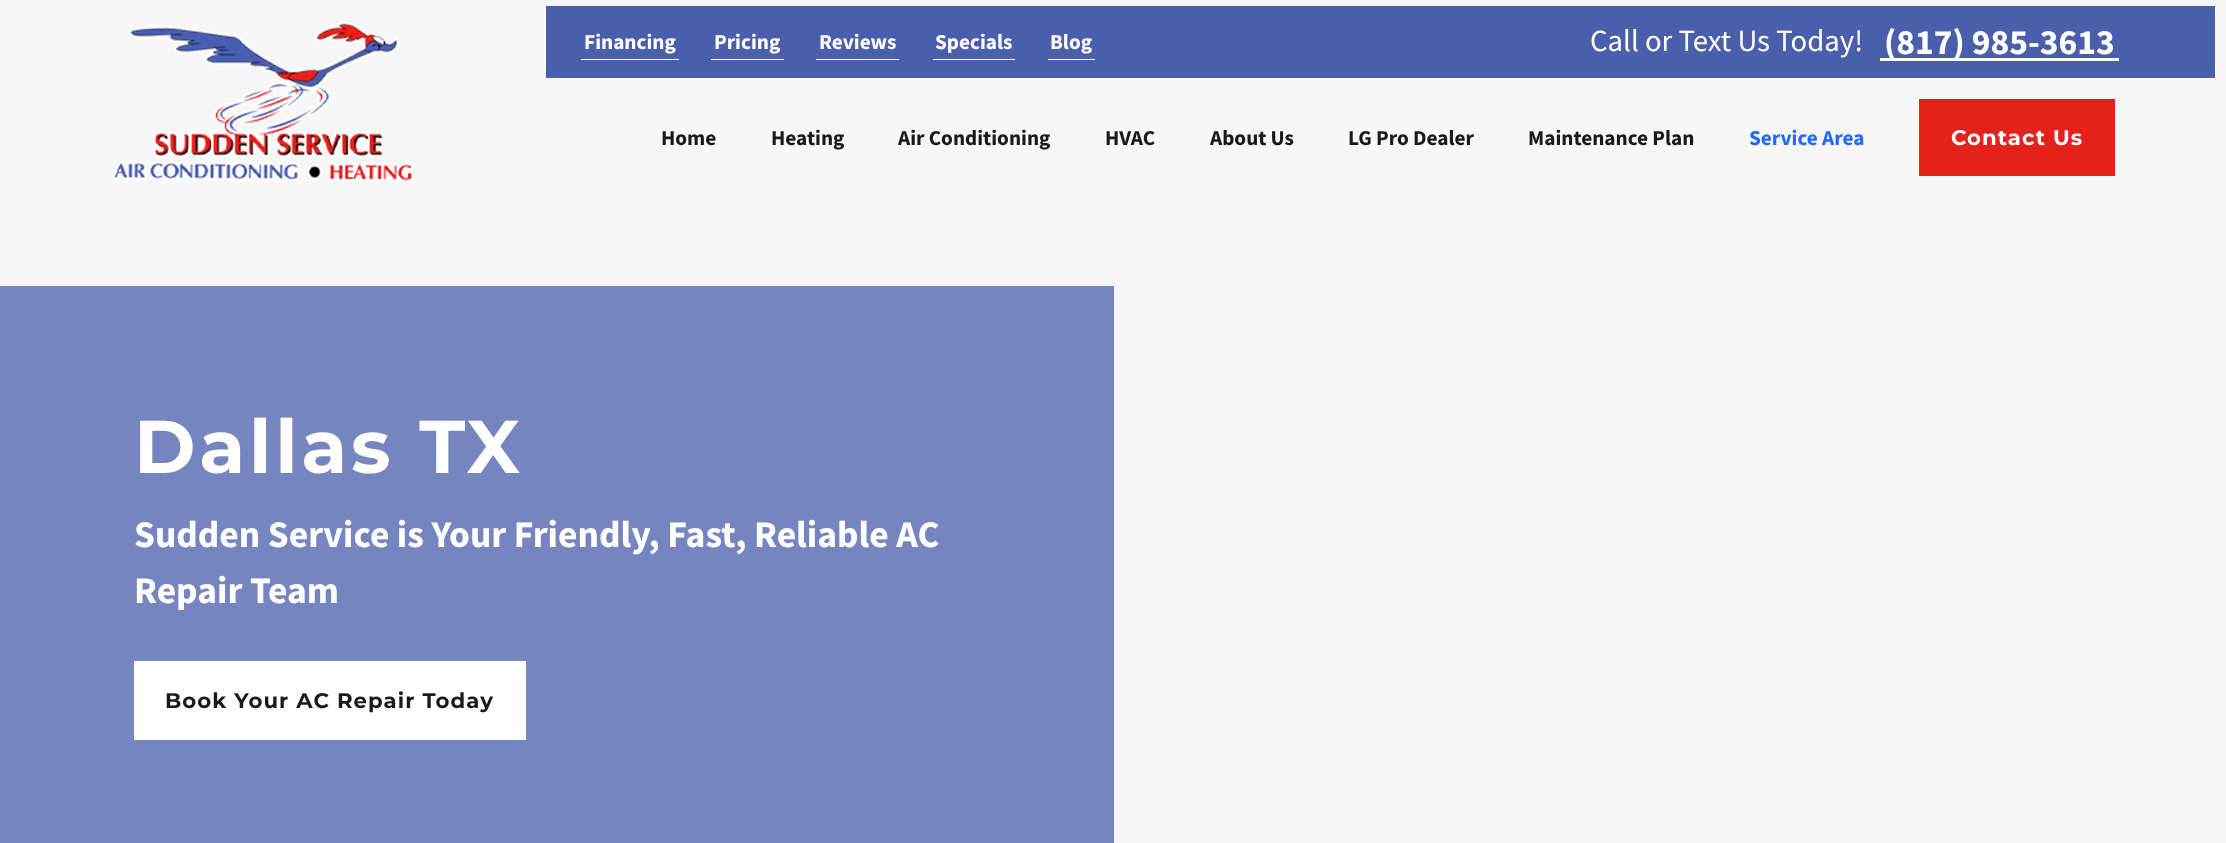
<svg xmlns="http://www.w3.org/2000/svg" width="2226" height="843">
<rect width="100%" height="100%" fill="#f7f7f7"/>
<image x="112" y="22" width="302" height="160" href="media/1.png"/>
<rect x="546" y="6" width="1669" height="72" fill="#4a5fac"/>
<text x="584" y="49" style="font-family:Source Sans Pro;font-size:21.25px;font-weight:bold;fill:#fff">Financing</text>
<rect x="581" y="59" width="98" height="1" fill="#fff"/>
<text x="714" y="49" style="font-family:Source Sans Pro;font-size:21.25px;font-weight:bold;fill:#fff">Pricing</text>
<rect x="711" y="59" width="73" height="1" fill="#fff"/>
<text x="819" y="49" style="font-family:Source Sans Pro;font-size:21.25px;font-weight:bold;fill:#fff">Reviews</text>
<rect x="816" y="59" width="83" height="1" fill="#fff"/>
<text x="935" y="49" style="font-family:Source Sans Pro;font-size:21.25px;font-weight:bold;fill:#fff">Specials</text>
<rect x="933" y="59" width="82" height="1" fill="#fff"/>
<text x="1050" y="49" style="font-family:Source Sans Pro;font-size:21.25px;font-weight:bold;fill:#fff">Blog</text>
<rect x="1048" y="59" width="47" height="1" fill="#fff"/>
<text x="1590" y="51" style="font-family:Source Sans Pro;font-size:30.75px;fill:#fff">Call or Text Us Today!</text>
<text x="1884" y="54" style="font-family:Source Sans Pro;font-size:35.5px;font-weight:bold;fill:#fff">(817) 985-3613</text>
<rect x="1880" y="58" width="239" height="3" fill="#fff"/>
<text x="661" y="145" style="font-family:Source Sans Pro;font-size:21.25px;font-weight:bold;fill:#1a1a1a">Home</text>
<text x="771" y="145" style="font-family:Source Sans Pro;font-size:21.25px;font-weight:bold;fill:#1a1a1a">Heating</text>
<text x="898" y="145" style="font-family:Source Sans Pro;font-size:21.25px;font-weight:bold;fill:#1a1a1a">Air Conditioning</text>
<text x="1105" y="145" style="font-family:Source Sans Pro;font-size:21.25px;font-weight:bold;fill:#1a1a1a">HVAC</text>
<text x="1210" y="145" style="font-family:Source Sans Pro;font-size:21.25px;font-weight:bold;fill:#1a1a1a">About Us</text>
<text x="1348" y="145" style="font-family:Source Sans Pro;font-size:21.25px;font-weight:bold;fill:#1a1a1a">LG Pro Dealer</text>
<text x="1528" y="145" style="font-family:Source Sans Pro;font-size:21.25px;font-weight:bold;fill:#1a1a1a">Maintenance Plan</text>
<text x="1749" y="145" style="font-family:Source Sans Pro;font-size:21.25px;font-weight:bold;fill:#1f6aff">Service Area</text>
<rect x="1919" y="99" width="196" height="77" fill="#e4221c"/>
<text x="1951" y="145" style="font-family:Montserrat;font-size:21.25px;font-weight:bold;letter-spacing:1.05px;fill:#fff">Contact Us</text>
<rect y="286" width="1114" height="557" fill="#7585bf"/>
<text x="134" y="473" style="font-family:Montserrat;font-size:74.5px;font-weight:bold;letter-spacing:3.75px;fill:#fff">Dallas TX</text>
<text x="134" y="547" style="font-family:Source Sans Pro;font-size:37.6px;font-weight:bold;fill:#fff">Sudden Service is Your Friendly, Fast, Reliable AC</text>
<text x="134" y="603" style="font-family:Source Sans Pro;font-size:37.6px;font-weight:bold;fill:#fff">Repair Team</text>
<rect x="134" y="661" width="392" height="79" fill="#fff"/>
<text x="165" y="708" style="font-family:Montserrat;font-size:21.25px;font-weight:bold;letter-spacing:1.05px;fill:#1a1a1a">Book Your AC Repair Today</text>
</svg>
